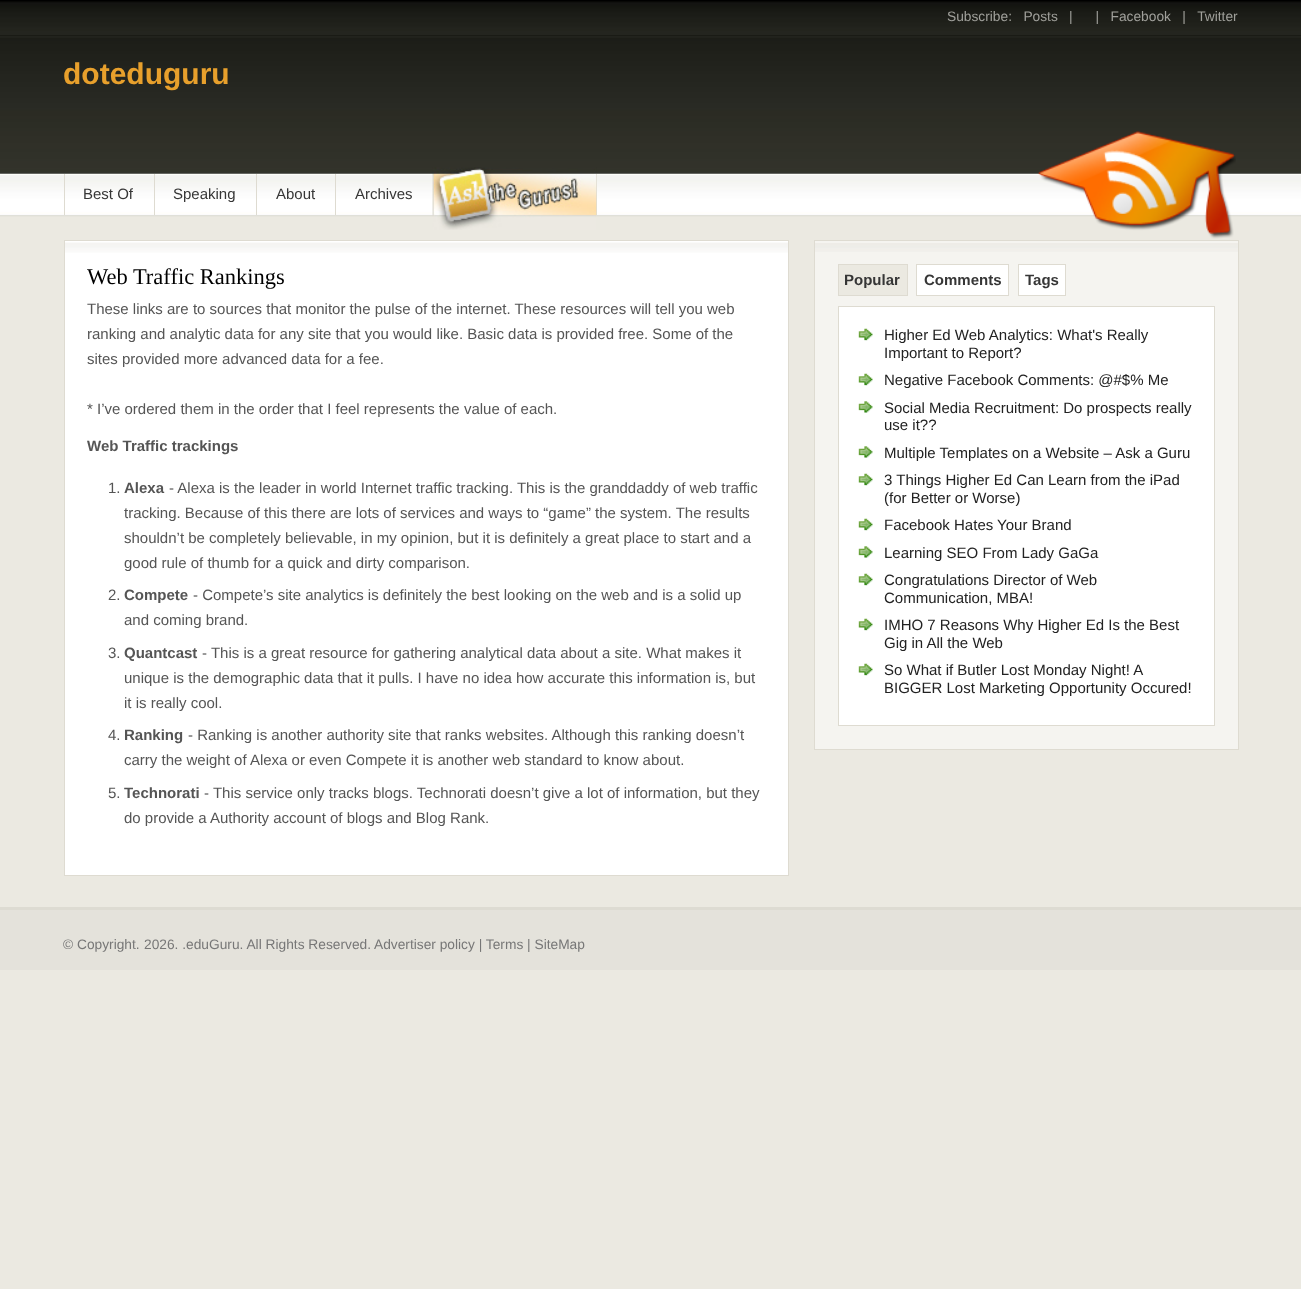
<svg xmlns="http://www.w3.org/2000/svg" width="1301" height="1289">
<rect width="100%" height="100%" fill="#ebe9e1"/>
<image x="0" y="0" width="1301" height="217" href="media/1.png"/>
<text x="947" y="21" style="font-family:Liberation Sans;font-size:13.75px;fill:#a0a09b" xml:space="preserve">Subscribe:   Posts</text>
<text x="1069" y="21" style="font-family:Liberation Sans;font-size:13.75px;fill:#a0a09b" xml:space="preserve">|      |   Facebook   |   Twitter</text>
<text x="63" y="84" style="font-family:Liberation Sans;font-size:30px;font-weight:bold;fill:#e8a02c">doteduguru</text>
<rect x="596" y="174" width="1" height="41" fill="#dedbd1"/>
<image x="432" y="167" width="165" height="63" href="media/2.png"/>
<rect x="64" y="174" width="1" height="41" fill="#dedbd1"/>
<text x="83" y="199" style="font-family:Liberation Sans;font-size:15px;fill:#363636">Best Of</text>
<rect x="154" y="174" width="1" height="41" fill="#dedbd1"/>
<text x="173" y="199" style="font-family:Liberation Sans;font-size:15px;fill:#363636">Speaking</text>
<rect x="256" y="174" width="1" height="41" fill="#dedbd1"/>
<text x="276" y="199" style="font-family:Liberation Sans;font-size:15px;fill:#363636">About</text>
<rect x="335" y="174" width="1" height="41" fill="#dedbd1"/>
<text x="355" y="199" style="font-family:Liberation Sans;font-size:15px;fill:#363636">Archives</text>
<image x="1038" y="131" width="198" height="108" href="media/3.png"/>
<rect x="65" y="241" width="723" height="634" fill="#fff"/>
<image x="65" y="242" width="723" height="11" href="media/4.png"/>
<rect x="64.5" y="240.5" width="724" height="635" fill="none" stroke="#dedbd1"/>
<text x="87" y="284" style="font-family:Liberation Serif;font-size:22.5px;fill:#000">Web Traffic Rankings</text>
<text x="87" y="314" style="font-family:Liberation Sans;font-size:15px;fill:#555">These links are to sources that monitor the pulse of the internet. These resources will tell you web</text>
<text x="87" y="339" style="font-family:Liberation Sans;font-size:15px;fill:#555">ranking and analytic data for any site that you would like. Basic data is provided free. Some of the</text>
<text x="87" y="364" style="font-family:Liberation Sans;font-size:15px;fill:#555">sites provided more advanced data for a fee.</text>
<text x="87" y="414" style="font-family:Liberation Sans;font-size:15px;fill:#555">* I’ve ordered them in the order that I feel represents the value of each.</text>
<text x="87" y="451" style="font-family:Liberation Sans;font-size:15px;font-weight:bold;fill:#555">Web Traffic trackings</text>
<text x="108" y="493" style="font-family:Liberation Sans;font-size:15px;fill:#555">1.</text>
<text x="124" y="493" style="font-family:Liberation Sans;font-size:15px;font-weight:bold;fill:#555">Alexa</text>
<text x="169" y="493" style="font-family:Liberation Sans;font-size:15px;fill:#555">- Alexa is the leader in world Internet traffic tracking. This is the granddaddy of web traffic</text>
<text x="124" y="518" style="font-family:Liberation Sans;font-size:15px;fill:#555">tracking. Because of this there are lots of services and ways to “game” the system. The results</text>
<text x="124" y="543" style="font-family:Liberation Sans;font-size:15px;fill:#555">shouldn’t be completely believable, in my opinion, but it is definitely a great place to start and a</text>
<text x="124" y="568" style="font-family:Liberation Sans;font-size:15px;fill:#555">good rule of thumb for a quick and dirty comparison.</text>
<text x="108" y="600" style="font-family:Liberation Sans;font-size:15px;fill:#555">2.</text>
<text x="124" y="600" style="font-family:Liberation Sans;font-size:15px;font-weight:bold;fill:#555">Compete</text>
<text x="193" y="600" style="font-family:Liberation Sans;font-size:15px;fill:#555">- Compete’s site analytics is definitely the best looking on the web and is a solid up</text>
<text x="124" y="625" style="font-family:Liberation Sans;font-size:15px;fill:#555">and coming brand.</text>
<text x="108" y="658" style="font-family:Liberation Sans;font-size:15px;fill:#555">3.</text>
<text x="124" y="658" style="font-family:Liberation Sans;font-size:15px;font-weight:bold;fill:#555">Quantcast</text>
<text x="202" y="658" style="font-family:Liberation Sans;font-size:15px;fill:#555">- This is a great resource for gathering analytical data about a site. What makes it</text>
<text x="124" y="683" style="font-family:Liberation Sans;font-size:15px;fill:#555">unique is the demographic data that it pulls. I have no idea how accurate this information is, but</text>
<text x="124" y="708" style="font-family:Liberation Sans;font-size:15px;fill:#555">it is really cool.</text>
<text x="108" y="740" style="font-family:Liberation Sans;font-size:15px;fill:#555">4.</text>
<text x="124" y="740" style="font-family:Liberation Sans;font-size:15px;font-weight:bold;fill:#555">Ranking</text>
<text x="188" y="740" style="font-family:Liberation Sans;font-size:15px;fill:#555">- Ranking is another authority site that ranks websites. Although this ranking doesn’t</text>
<text x="124" y="765" style="font-family:Liberation Sans;font-size:15px;fill:#555">carry the weight of Alexa or even Compete it is another web standard to know about.</text>
<text x="108" y="798" style="font-family:Liberation Sans;font-size:15px;fill:#555">5.</text>
<text x="124" y="798" style="font-family:Liberation Sans;font-size:15px;font-weight:bold;fill:#555">Technorati</text>
<text x="204" y="798" style="font-family:Liberation Sans;font-size:15px;fill:#555">- This service only tracks blogs. Technorati doesn’t give a lot of information, but they</text>
<text x="124" y="823" style="font-family:Liberation Sans;font-size:15px;fill:#555">do provide a Authority account of blogs and Blog Rank.</text>
<rect x="815" y="241" width="423" height="508" fill="#f5f4f0"/>
<image x="815" y="243" width="423" height="9" href="media/5.png"/>
<rect x="814.5" y="240.5" width="424" height="509" fill="none" stroke="#dedbd1"/>
<rect x="838.5" y="264.5" width="69" height="31" fill="#ebe9e1" stroke="#dedbd1"/>
<text x="844" y="285" style="font-family:Liberation Sans;font-size:15px;font-weight:bold;fill:#363636">Popular</text>
<rect x="916.5" y="264.5" width="92" height="31" fill="#fff" stroke="#dedbd1"/>
<text x="924" y="285" style="font-family:Liberation Sans;font-size:15px;font-weight:bold;fill:#363636">Comments</text>
<rect x="1018.5" y="264.5" width="47" height="31" fill="#fff" stroke="#dedbd1"/>
<text x="1025" y="285" style="font-family:Liberation Sans;font-size:15px;font-weight:bold;fill:#363636">Tags</text>
<rect x="838.5" y="306.5" width="376" height="419" fill="#fff" stroke="#dedbd1"/>
<image x="858" y="328" width="15" height="13" href="media/6.png"/>
<text x="884" y="340" style="font-family:Liberation Sans;font-size:15px;fill:#222">Higher Ed Web Analytics: What's Really</text>
<text x="884" y="358" style="font-family:Liberation Sans;font-size:15px;fill:#222">Important to Report?</text>
<image x="858" y="373" width="15" height="13" href="media/6.png"/>
<text x="884" y="385" style="font-family:Liberation Sans;font-size:15px;fill:#222">Negative Facebook Comments: @#$% Me</text>
<image x="858" y="401" width="15" height="12" href="media/7.png"/>
<text x="884" y="413" style="font-family:Liberation Sans;font-size:15px;fill:#222">Social Media Recruitment: Do prospects really</text>
<text x="884" y="430" style="font-family:Liberation Sans;font-size:15px;fill:#222">use it??</text>
<image x="858" y="446" width="15" height="12" href="media/7.png"/>
<text x="884" y="458" style="font-family:Liberation Sans;font-size:15px;fill:#222">Multiple Templates on a Website – Ask a Guru</text>
<image x="858" y="473" width="15" height="13" href="media/6.png"/>
<text x="884" y="485" style="font-family:Liberation Sans;font-size:15px;fill:#222">3 Things Higher Ed Can Learn from the iPad</text>
<text x="884" y="503" style="font-family:Liberation Sans;font-size:15px;fill:#222">(for Better or Worse)</text>
<image x="858" y="518" width="15" height="13" href="media/6.png"/>
<text x="884" y="530" style="font-family:Liberation Sans;font-size:15px;fill:#222">Facebook Hates Your Brand</text>
<image x="858" y="546" width="15" height="12" href="media/7.png"/>
<text x="884" y="558" style="font-family:Liberation Sans;font-size:15px;fill:#222">Learning SEO From Lady GaGa</text>
<image x="858" y="573" width="15" height="13" href="media/6.png"/>
<text x="884" y="585" style="font-family:Liberation Sans;font-size:15px;fill:#222">Congratulations Director of Web</text>
<text x="884" y="603" style="font-family:Liberation Sans;font-size:15px;fill:#222">Communication, MBA!</text>
<image x="858" y="618" width="15" height="13" href="media/6.png"/>
<text x="884" y="630" style="font-family:Liberation Sans;font-size:15px;fill:#222">IMHO 7 Reasons Why Higher Ed Is the Best</text>
<text x="884" y="648" style="font-family:Liberation Sans;font-size:15px;fill:#222">Gig in All the Web</text>
<image x="858" y="663" width="15" height="13" href="media/6.png"/>
<text x="884" y="675" style="font-family:Liberation Sans;font-size:15px;fill:#222">So What if Butler Lost Monday Night! A</text>
<text x="884" y="693" style="font-family:Liberation Sans;font-size:15px;fill:#222">BIGGER Lost Marketing Opportunity Occured!</text>
<rect y="910" width="1301" height="60" fill="#e4e2db"/>
<rect y="907" width="1301" height="3" fill="#dddbd2"/>
<text x="63" y="949" style="font-family:Liberation Sans;font-size:13.75px;fill:#777">© Copyright.</text>
<text x="144" y="949" style="font-family:Liberation Sans;font-size:13.75px;fill:#777">2026. .eduGuru. All Rights Reserved.</text>
<text x="374" y="949" style="font-family:Liberation Sans;font-size:13.75px;fill:#777">Advertiser policy | Terms | SiteMap</text>
</svg>
